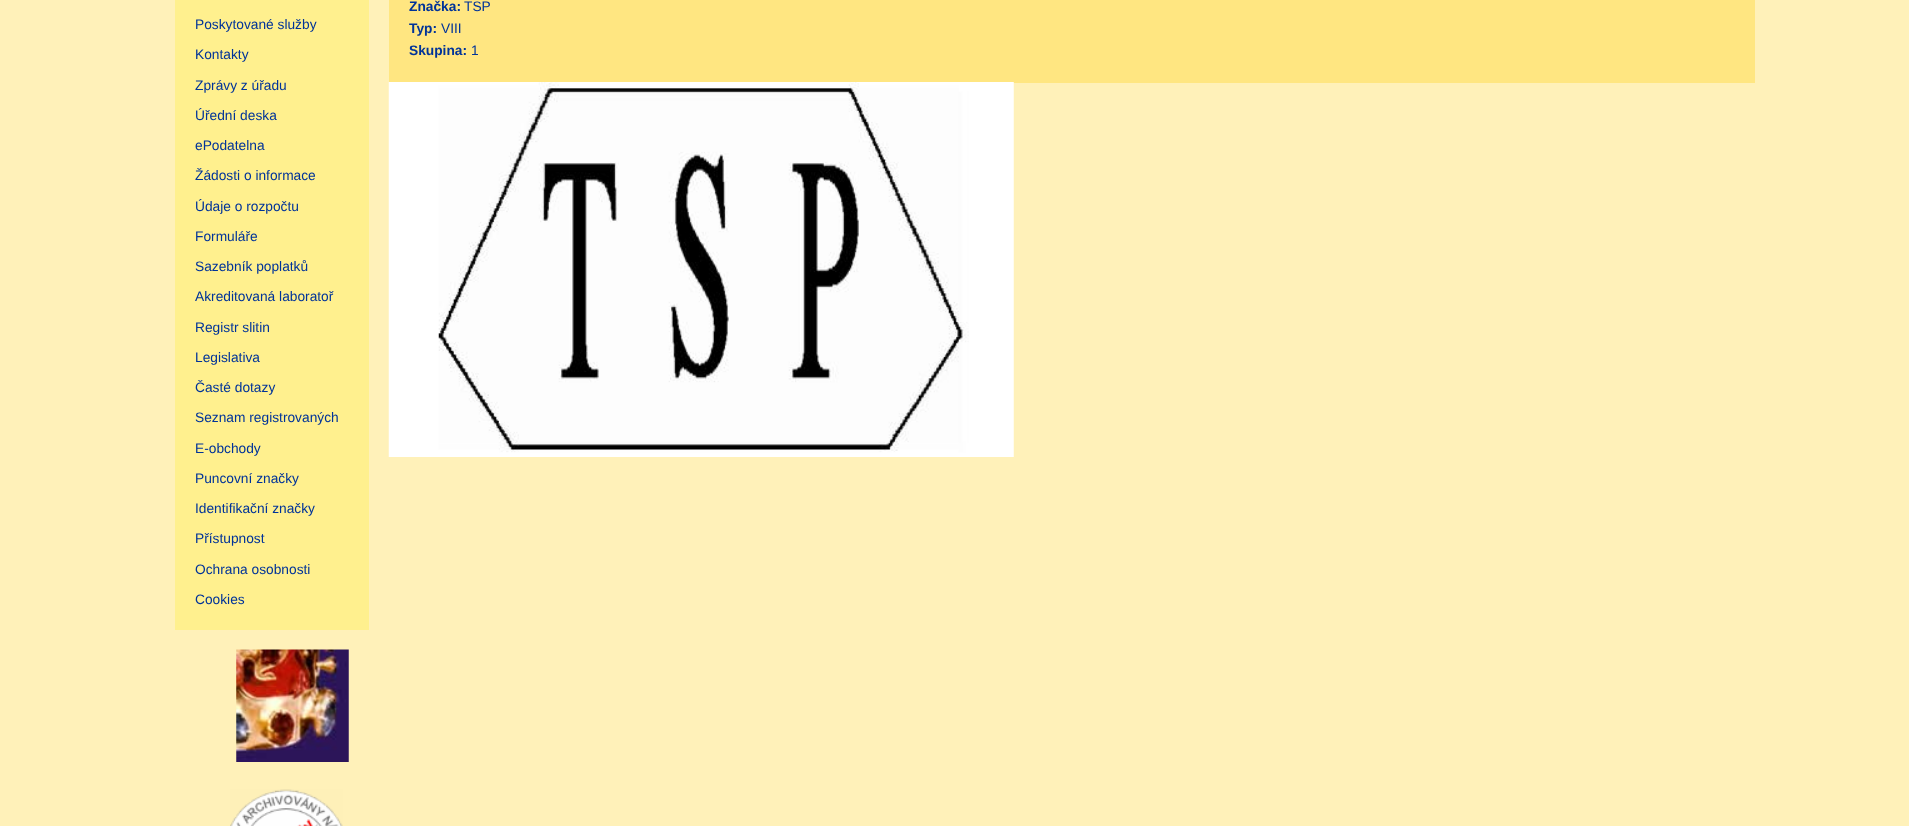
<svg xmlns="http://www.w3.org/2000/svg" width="1909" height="826">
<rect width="100%" height="100%" fill="#fff1b9"/>
<rect x="175" width="194" height="630" fill="#fff08e"/>
<text x="195" y="29" style="font-family:Liberation Sans;font-size:13.75px;fill:#039">Poskytované služby</text>
<text x="195" y="59" style="font-family:Liberation Sans;font-size:13.75px;fill:#039">Kontakty</text>
<text x="195" y="90" style="font-family:Liberation Sans;font-size:13.75px;fill:#039">Zprávy z úřadu</text>
<text x="195" y="120" style="font-family:Liberation Sans;font-size:13.75px;fill:#039">Úřední deska</text>
<text x="195" y="150" style="font-family:Liberation Sans;font-size:13.75px;fill:#039">ePodatelna</text>
<text x="195" y="180" style="font-family:Liberation Sans;font-size:13.75px;fill:#039">Žádosti o informace</text>
<text x="195" y="211" style="font-family:Liberation Sans;font-size:13.75px;fill:#039">Údaje o rozpočtu</text>
<text x="195" y="241" style="font-family:Liberation Sans;font-size:13.75px;fill:#039">Formuláře</text>
<text x="195" y="271" style="font-family:Liberation Sans;font-size:13.75px;fill:#039">Sazebník poplatků</text>
<text x="195" y="301" style="font-family:Liberation Sans;font-size:13.75px;fill:#039">Akreditovaná laboratoř</text>
<text x="195" y="332" style="font-family:Liberation Sans;font-size:13.75px;fill:#039">Registr slitin</text>
<text x="195" y="362" style="font-family:Liberation Sans;font-size:13.75px;fill:#039">Legislativa</text>
<text x="195" y="392" style="font-family:Liberation Sans;font-size:13.75px;fill:#039">Časté dotazy</text>
<text x="195" y="422" style="font-family:Liberation Sans;font-size:13.75px;fill:#039">Seznam registrovaných</text>
<text x="195" y="453" style="font-family:Liberation Sans;font-size:13.75px;fill:#039">E-obchody</text>
<text x="195" y="483" style="font-family:Liberation Sans;font-size:13.75px;fill:#039">Puncovní značky</text>
<text x="195" y="513" style="font-family:Liberation Sans;font-size:13.75px;fill:#039">Identifikační značky</text>
<text x="195" y="543" style="font-family:Liberation Sans;font-size:13.75px;fill:#039">Přístupnost</text>
<text x="195" y="574" style="font-family:Liberation Sans;font-size:13.75px;fill:#039">Ochrana osobnosti</text>
<text x="195" y="604" style="font-family:Liberation Sans;font-size:13.75px;fill:#039">Cookies</text>
<image x="236" y="649" width="113" height="113" href="media/1.png"/>
<image x="230" y="789" width="113" height="37" href="media/2.png"/>
<rect x="389" width="1366" height="83" fill="#ffe681"/>
<text x="409" y="11" style="font-family:Liberation Sans;font-size:13.75px;font-weight:bold;fill:#039">Značka:</text>
<text x="464" y="11" style="font-family:Liberation Sans;font-size:13.75px;fill:#039">TSP</text>
<text x="409" y="33" style="font-family:Liberation Sans;font-size:13.75px;font-weight:bold;fill:#039">Typ:</text>
<text x="441" y="33" style="font-family:Liberation Sans;font-size:13.75px;fill:#039">VIII</text>
<text x="409" y="55" style="font-family:Liberation Sans;font-size:13.75px;font-weight:bold;fill:#039">Skupina:</text>
<text x="471" y="55" style="font-family:Liberation Sans;font-size:13.75px;fill:#039">1</text>
<image x="388" y="82" width="626" height="375" href="media/3.png"/>
</svg>
